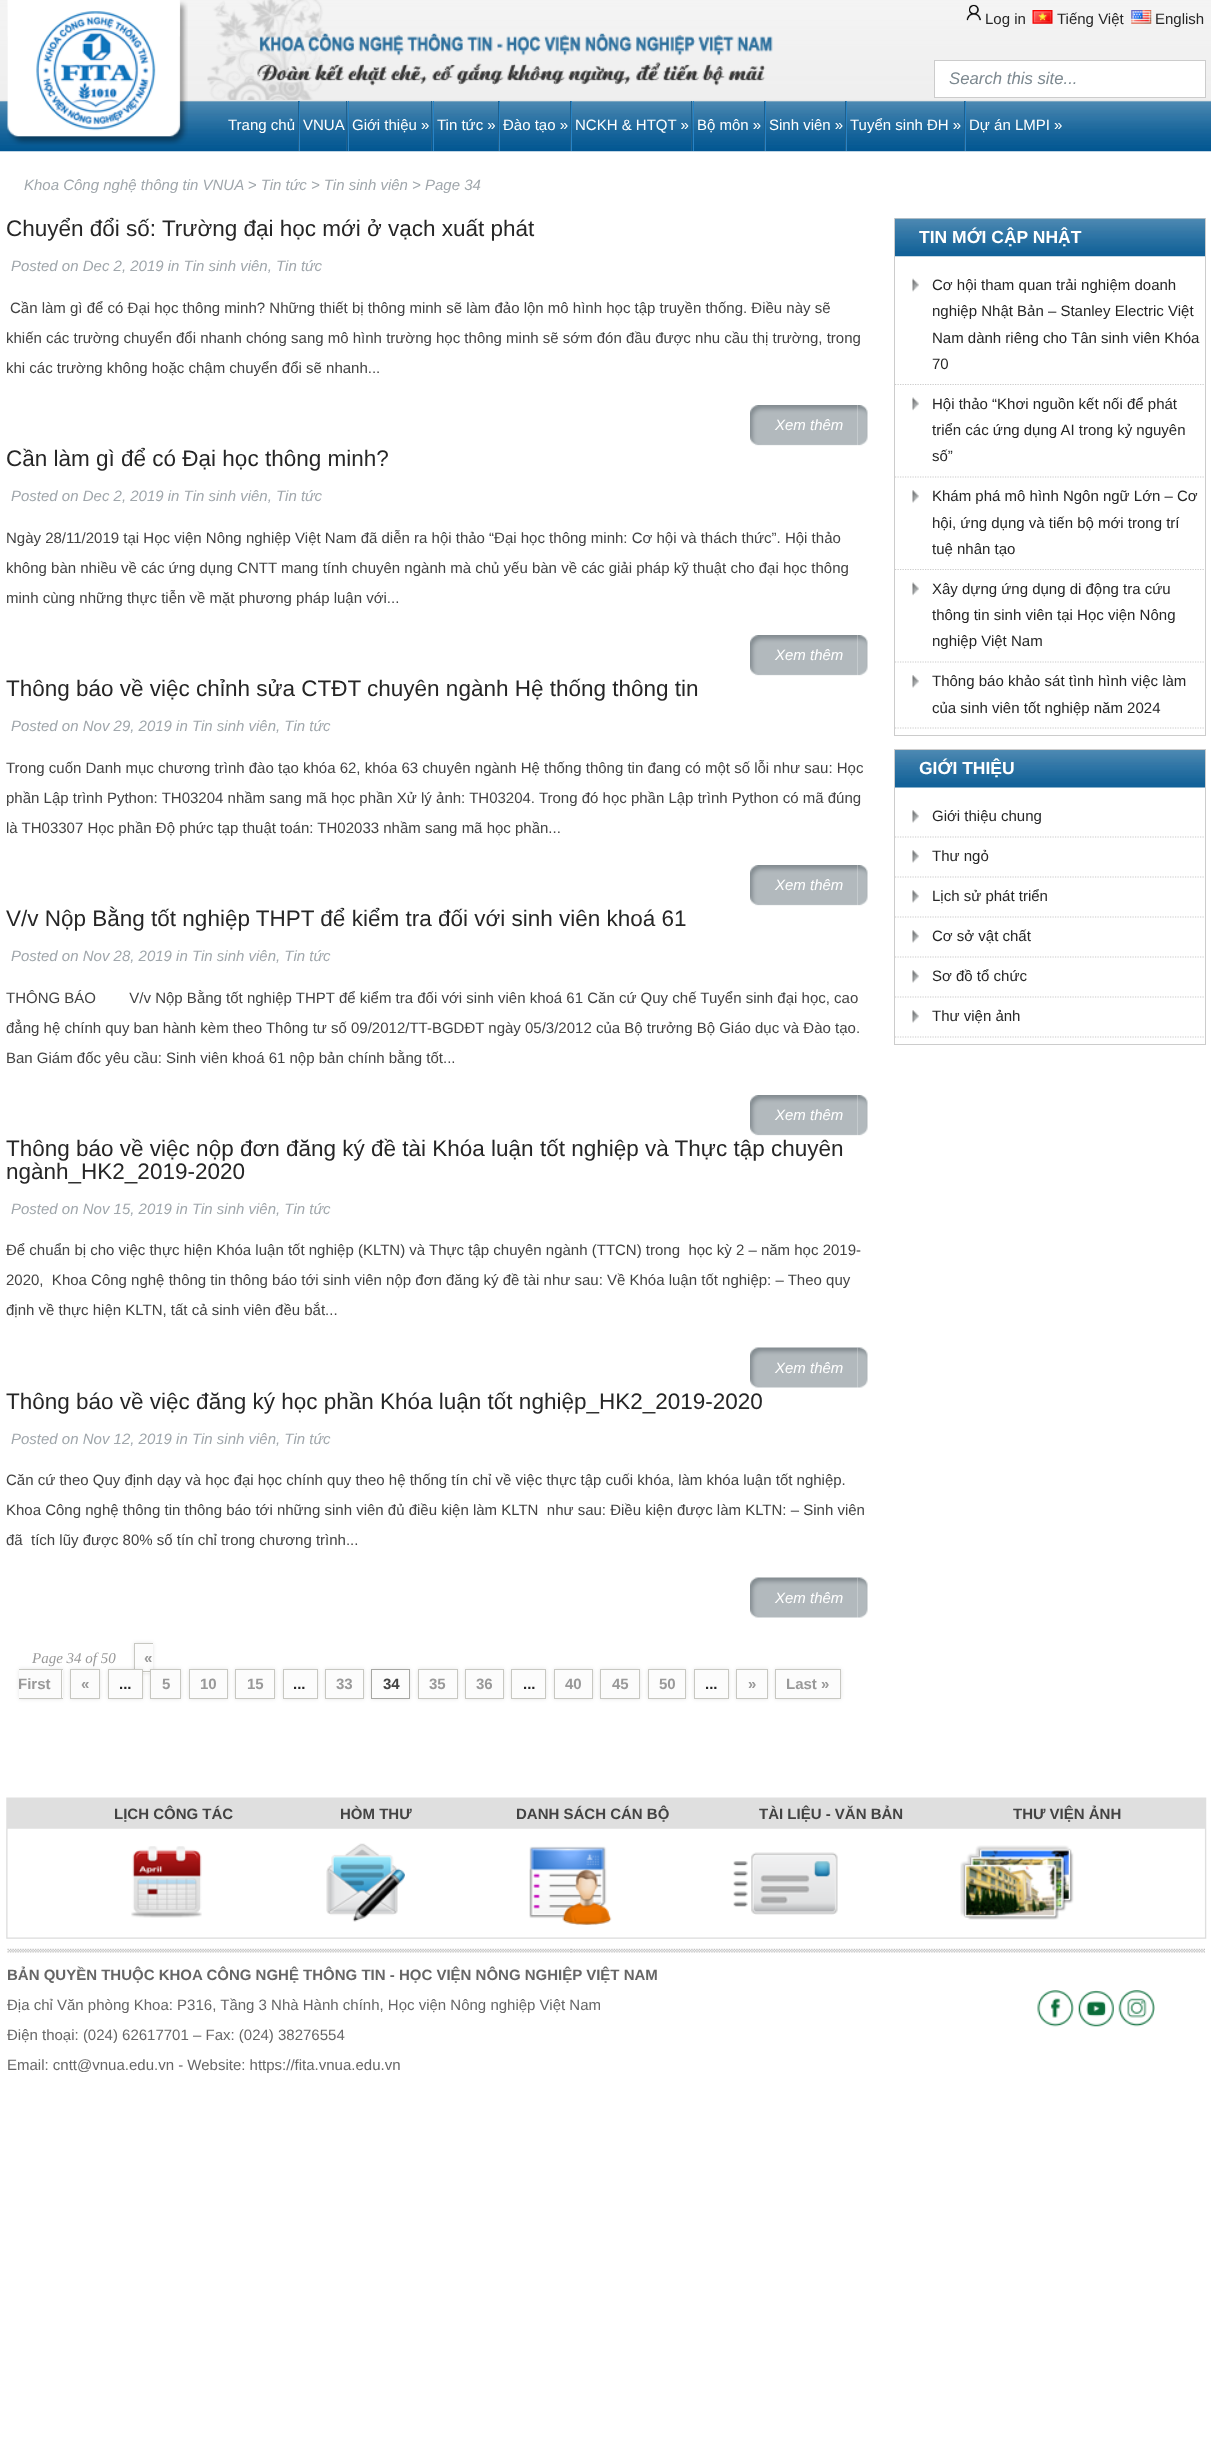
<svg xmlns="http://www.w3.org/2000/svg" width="1211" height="2443">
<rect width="100%" height="100%" fill="#fff"/>
<image x="0" y="0" width="1211" height="152" href="media/1.png"/>
<image x="7" y="0" width="181" height="145" href="media/2.png"/>
<image x="207" y="0" width="566" height="100" href="media/3.png"/>
<image x="966" y="4" width="15" height="17" href="media/4.png"/>
<text x="985" y="24" style="font-family:Liberation Sans;font-size:15px;fill:#262626">Log in</text>
<image x="1032" y="10" width="21" height="14" href="media/5.png"/>
<text x="1057" y="24" style="font-family:Liberation Sans;font-size:15px;fill:#262626">Tiếng Việt</text>
<image x="1131" y="10" width="21" height="14" href="media/6.png"/>
<text x="1155" y="24" style="font-family:Liberation Sans;font-size:15px;fill:#262626">English</text>
<rect x="934.5" y="60.5" width="271" height="37" fill="#fff" stroke="#ccc"/>
<text x="949" y="84" style="font-family:Liberation Sans;font-size:16.75px;font-style:italic;fill:#7d8990">Search this site...</text>
<rect x="298" y="101" width="1" height="50" fill="#1f608d"/>
<text x="228" y="130" style="font-family:Liberation Sans;font-size:15px;fill:#fff">Trang chủ</text>
<rect x="346" y="101" width="1" height="50" fill="#1f608d"/>
<rect x="299" y="101" width="1" height="50" fill="#2883c5"/>
<text x="303" y="130" style="font-family:Liberation Sans;font-size:15px;fill:#fff">VNUA</text>
<rect x="431" y="101" width="1" height="50" fill="#1f608d"/>
<rect x="348" y="101" width="1" height="50" fill="#2883c5"/>
<text x="352" y="130" style="font-family:Liberation Sans;font-size:15px;fill:#fff">Giới thiệu »</text>
<rect x="498" y="101" width="1" height="50" fill="#1f608d"/>
<rect x="433" y="101" width="1" height="50" fill="#2883c5"/>
<text x="437" y="130" style="font-family:Liberation Sans;font-size:15px;fill:#fff">Tin tức »</text>
<rect x="570" y="101" width="1" height="50" fill="#1f608d"/>
<rect x="499" y="101" width="1" height="50" fill="#2883c5"/>
<text x="503" y="130" style="font-family:Liberation Sans;font-size:15px;fill:#fff">Đào tạo »</text>
<rect x="691" y="101" width="1" height="50" fill="#1f608d"/>
<rect x="571" y="101" width="1" height="50" fill="#2883c5"/>
<text x="575" y="130" style="font-family:Liberation Sans;font-size:15px;fill:#fff">NCKH &amp; HTQT »</text>
<rect x="764" y="101" width="1" height="50" fill="#1f608d"/>
<rect x="693" y="101" width="1" height="50" fill="#2883c5"/>
<text x="697" y="130" style="font-family:Liberation Sans;font-size:15px;fill:#fff">Bộ môn »</text>
<rect x="845" y="101" width="1" height="50" fill="#1f608d"/>
<rect x="765" y="101" width="1" height="50" fill="#2883c5"/>
<text x="769" y="130" style="font-family:Liberation Sans;font-size:15px;fill:#fff">Sinh viên »</text>
<rect x="964" y="101" width="1" height="50" fill="#1f608d"/>
<rect x="846" y="101" width="1" height="50" fill="#2883c5"/>
<text x="850" y="130" style="font-family:Liberation Sans;font-size:15px;fill:#fff">Tuyển sinh ĐH »</text>
<rect x="965" y="101" width="1" height="50" fill="#2883c5"/>
<text x="969" y="130" style="font-family:Liberation Sans;font-size:15px;fill:#fff">Dự án LMPI »</text>
<text x="24" y="190" style="font-family:Liberation Sans;font-size:15px;font-style:italic;fill:#a0a7ac">Khoa Công nghệ thông tin VNUA &gt; Tin tức &gt; Tin sinh viên &gt; Page 34</text>
<text x="6" y="236" style="font-family:Liberation Sans;font-size:22.5px;fill:#262626">Chuyển đổi số: Trường đại học mới ở vạch xuất phát</text>
<text x="11" y="271" style="font-family:Liberation Sans;font-size:15px;font-style:italic;fill:#a0a7ac">Posted on Dec 2, 2019 in Tin sinh viên, Tin tức</text>
<text x="10" y="313" style="font-family:Liberation Sans;font-size:15px;fill:#434343">Cần làm gì để có Đại học thông minh? Những thiết bị thông minh sẽ làm đảo lộn mô hình học tập truyền thống. Điều này sẽ</text>
<text x="6" y="343" style="font-family:Liberation Sans;font-size:15px;fill:#434343">khiến các trường chuyển đổi nhanh chóng sang mô hình trường học thông minh sẽ sớm đón đầu được nhu cầu thị trường, trong</text>
<text x="6" y="373" style="font-family:Liberation Sans;font-size:15px;fill:#434343">khi các trường không hoặc chậm chuyển đổi sẽ nhanh...</text>
<image x="857" y="405" width="11" height="41" href="media/7.png"/>
<image x="750" y="405" width="108" height="41" href="media/8.png"/>
<text x="775" y="430" style="font-family:Liberation Sans;font-size:15px;font-style:italic;fill:#fff">Xem thêm</text>
<text x="6" y="466" style="font-family:Liberation Sans;font-size:22.5px;fill:#262626">Cần làm gì để có Đại học thông minh?</text>
<text x="11" y="501" style="font-family:Liberation Sans;font-size:15px;font-style:italic;fill:#a0a7ac">Posted on Dec 2, 2019 in Tin sinh viên, Tin tức</text>
<text x="6" y="543" style="font-family:Liberation Sans;font-size:15px;fill:#434343">Ngày 28/11/2019 tại Học viện Nông nghiệp Việt Nam đã diễn ra hội thảo “Đại học thông minh: Cơ hội và thách thức”. Hội thảo</text>
<text x="6" y="573" style="font-family:Liberation Sans;font-size:15px;fill:#434343">không bàn nhiều về các ứng dụng CNTT mang tính chuyên ngành mà chủ yếu bàn về các giải pháp kỹ thuật cho đại học thông</text>
<text x="6" y="603" style="font-family:Liberation Sans;font-size:15px;fill:#434343">minh cùng những thực tiễn về mặt phương pháp luận với...</text>
<image x="857" y="635" width="11" height="41" href="media/7.png"/>
<image x="750" y="635" width="108" height="41" href="media/8.png"/>
<text x="775" y="660" style="font-family:Liberation Sans;font-size:15px;font-style:italic;fill:#fff">Xem thêm</text>
<text x="6" y="696" style="font-family:Liberation Sans;font-size:22.5px;fill:#262626">Thông báo về việc chỉnh sửa CTĐT chuyên ngành Hệ thống thông tin</text>
<text x="11" y="731" style="font-family:Liberation Sans;font-size:15px;font-style:italic;fill:#a0a7ac">Posted on Nov 29, 2019 in Tin sinh viên, Tin tức</text>
<text x="6" y="773" style="font-family:Liberation Sans;font-size:15px;fill:#434343">Trong cuốn Danh mục chương trình đào tạo khóa 62, khóa 63 chuyên ngành Hệ thống thông tin đang có một số lỗi như sau: Học</text>
<text x="6" y="803" style="font-family:Liberation Sans;font-size:15px;fill:#434343">phần Lập trình Python: TH03204 nhầm sang mã học phần Xử lý ảnh: TH03204. Trong đó học phần Lập trình Python có mã đúng</text>
<text x="6" y="833" style="font-family:Liberation Sans;font-size:15px;fill:#434343">là TH03307 Học phần Độ phức tạp thuật toán: TH02033 nhầm sang mã học phần...</text>
<image x="857" y="865" width="11" height="41" href="media/7.png"/>
<image x="750" y="865" width="108" height="41" href="media/8.png"/>
<text x="775" y="890" style="font-family:Liberation Sans;font-size:15px;font-style:italic;fill:#fff">Xem thêm</text>
<text x="6" y="926" style="font-family:Liberation Sans;font-size:22.5px;fill:#262626">V/v Nộp Bằng tốt nghiệp THPT để kiểm tra đối với sinh viên khoá 61</text>
<text x="11" y="961" style="font-family:Liberation Sans;font-size:15px;font-style:italic;fill:#a0a7ac">Posted on Nov 28, 2019 in Tin sinh viên, Tin tức</text>
<text x="6" y="1003" style="font-family:Liberation Sans;font-size:15px;fill:#434343" xml:space="preserve">THÔNG BÁO        V/v Nộp Bằng tốt nghiệp THPT để kiểm tra đối với sinh viên khoá 61 Căn cứ Quy chế Tuyển sinh đại học, cao</text>
<text x="6" y="1033" style="font-family:Liberation Sans;font-size:15px;fill:#434343">đẳng hệ chính quy ban hành kèm theo Thông tư số 09/2012/TT-BGDĐT ngày 05/3/2012 của Bộ trưởng Bộ Giáo dục và Đào tạo.</text>
<text x="6" y="1063" style="font-family:Liberation Sans;font-size:15px;fill:#434343">Ban Giám đốc yêu cầu: Sinh viên khoá 61 nộp bản chính bằng tốt...</text>
<image x="857" y="1095" width="11" height="41" href="media/7.png"/>
<image x="750" y="1095" width="108" height="41" href="media/8.png"/>
<text x="775" y="1120" style="font-family:Liberation Sans;font-size:15px;font-style:italic;fill:#fff">Xem thêm</text>
<text x="6" y="1156" style="font-family:Liberation Sans;font-size:22.5px;fill:#262626">Thông báo về việc nộp đơn đăng ký đề tài Khóa luận tốt nghiệp và Thực tập chuyên</text>
<text x="6" y="1179" style="font-family:Liberation Sans;font-size:22.5px;fill:#262626">ngành_HK2_2019-2020</text>
<text x="11" y="1214" style="font-family:Liberation Sans;font-size:15px;font-style:italic;fill:#a0a7ac">Posted on Nov 15, 2019 in Tin sinh viên, Tin tức</text>
<text x="6" y="1255" style="font-family:Liberation Sans;font-size:15px;fill:#434343" xml:space="preserve">Để chuẩn bị cho việc thực hiện Khóa luận tốt nghiệp (KLTN) và Thực tập chuyên ngành (TTCN) trong  học kỳ 2 – năm học 2019-</text>
<text x="6" y="1285" style="font-family:Liberation Sans;font-size:15px;fill:#434343" xml:space="preserve">2020,  Khoa Công nghệ thông tin thông báo tới sinh viên nộp đơn đăng ký đề tài như sau: Về Khóa luận tốt nghiệp: – Theo quy</text>
<text x="6" y="1315" style="font-family:Liberation Sans;font-size:15px;fill:#434343">định về thực hiện KLTN, tất cả sinh viên đều bắt...</text>
<image x="857" y="1347" width="11" height="41" href="media/9.png"/>
<image x="750" y="1347" width="108" height="41" href="media/10.png"/>
<text x="775" y="1373" style="font-family:Liberation Sans;font-size:15px;font-style:italic;fill:#fff">Xem thêm</text>
<text x="6" y="1409" style="font-family:Liberation Sans;font-size:22.5px;fill:#262626">Thông báo về việc đăng ký học phần Khóa luận tốt nghiệp_HK2_2019-2020</text>
<text x="11" y="1444" style="font-family:Liberation Sans;font-size:15px;font-style:italic;fill:#a0a7ac">Posted on Nov 12, 2019 in Tin sinh viên, Tin tức</text>
<text x="6" y="1485" style="font-family:Liberation Sans;font-size:15px;fill:#434343">Căn cứ theo Quy định dạy và học đại học chính quy theo hệ thống tín chỉ về việc thực tập cuối khóa, làm khóa luận tốt nghiệp.</text>
<text x="6" y="1515" style="font-family:Liberation Sans;font-size:15px;fill:#434343" xml:space="preserve">Khoa Công nghệ thông tin thông báo tới những sinh viên đủ điều kiện làm KLTN  như sau: Điều kiện được làm KLTN: – Sinh viên</text>
<text x="6" y="1545" style="font-family:Liberation Sans;font-size:15px;fill:#434343" xml:space="preserve">đã  tích lũy được 80% số tín chỉ trong chương trình...</text>
<image x="857" y="1577" width="11" height="41" href="media/9.png"/>
<image x="750" y="1577" width="108" height="41" href="media/10.png"/>
<text x="775" y="1603" style="font-family:Liberation Sans;font-size:15px;font-style:italic;fill:#fff">Xem thêm</text>
<text x="32" y="1663" style="font-family:Liberation Serif;font-size:15px;font-style:italic;fill:#999">Page 34 of 50</text>
<rect x="134" y="1643" width="19" height="30" fill="#0000001a" filter="blur(2px)"/>
<rect x="135" y="1644" width="18" height="29" fill="#fcfcfc"/>
<text x="144" y="1663" style="font-family:Liberation Sans;font-size:15px;font-weight:bold;fill:#999">«</text>
<rect x="134" y="1643" width="19" height="1" fill="#c8c8c2"/>
<rect x="143" y="1671" width="10" height="1" fill="#c8c8c2"/>
<rect x="134" y="1643" width="1" height="30" fill="#c8c8c2"/>
<rect x="19" y="1669" width="44" height="30" fill="#0000001a" filter="blur(2px)"/>
<rect x="19" y="1670" width="44" height="28" fill="#fcfcfc"/>
<text x="18" y="1689" style="font-family:Liberation Sans;font-size:15px;font-weight:bold;fill:#999">First</text>
<rect x="19" y="1669" width="44" height="1" fill="#c8c8c2"/>
<rect x="61" y="1669" width="1" height="30" fill="#c8c8c2"/>
<rect x="19" y="1698" width="44" height="1" fill="#c8c8c2"/>
<rect x="70" y="1669" width="30" height="30" fill="#0000001a" filter="blur(2px)"/>
<rect x="70.5" y="1669.5" width="29" height="29" fill="#fcfcfc" stroke="#c8c8c2"/>
<text x="81" y="1689" style="font-family:Liberation Sans;font-size:15px;font-weight:bold;fill:#999">«</text>
<rect x="108" y="1669" width="35" height="30" fill="#0000001a" filter="blur(2px)"/>
<rect x="108.5" y="1669.5" width="34" height="29" fill="#fcfcfc" stroke="#c8c8c2"/>
<text x="119" y="1689" style="font-family:Liberation Sans;font-size:15px;font-weight:bold;fill:#262626">...</text>
<rect x="150" y="1669" width="31" height="30" fill="#0000001a" filter="blur(2px)"/>
<rect x="150.5" y="1669.5" width="30" height="29" fill="#fcfcfc" stroke="#c8c8c2"/>
<text x="162" y="1689" style="font-family:Liberation Sans;font-size:15px;font-weight:bold;fill:#999">5</text>
<rect x="189" y="1669" width="39" height="30" fill="#0000001a" filter="blur(2px)"/>
<rect x="189.5" y="1669.5" width="38" height="29" fill="#fcfcfc" stroke="#c8c8c2"/>
<text x="200" y="1689" style="font-family:Liberation Sans;font-size:15px;font-weight:bold;fill:#999">10</text>
<rect x="235" y="1669" width="40" height="30" fill="#0000001a" filter="blur(2px)"/>
<rect x="235.5" y="1669.5" width="39" height="29" fill="#fcfcfc" stroke="#c8c8c2"/>
<text x="247" y="1689" style="font-family:Liberation Sans;font-size:15px;font-weight:bold;fill:#999">15</text>
<rect x="283" y="1669" width="35" height="30" fill="#0000001a" filter="blur(2px)"/>
<rect x="283.5" y="1669.5" width="34" height="29" fill="#fcfcfc" stroke="#c8c8c2"/>
<text x="293" y="1689" style="font-family:Liberation Sans;font-size:15px;font-weight:bold;fill:#262626">...</text>
<rect x="325" y="1669" width="39" height="30" fill="#0000001a" filter="blur(2px)"/>
<rect x="325.5" y="1669.5" width="38" height="29" fill="#fcfcfc" stroke="#c8c8c2"/>
<text x="336" y="1689" style="font-family:Liberation Sans;font-size:15px;font-weight:bold;fill:#999">33</text>
<rect x="371" y="1669" width="39" height="30" fill="#0000001a" filter="blur(2px)"/>
<rect x="371.5" y="1669.5" width="38" height="29" fill="#fcfcfc" stroke="#a7a7a3"/>
<text x="383" y="1689" style="font-family:Liberation Sans;font-size:15px;font-weight:bold;fill:#434343">34</text>
<rect x="418" y="1669" width="40" height="30" fill="#0000001a" filter="blur(2px)"/>
<rect x="418.5" y="1669.5" width="39" height="29" fill="#fcfcfc" stroke="#c8c8c2"/>
<text x="429" y="1689" style="font-family:Liberation Sans;font-size:15px;font-weight:bold;fill:#999">35</text>
<rect x="465" y="1669" width="39" height="30" fill="#0000001a" filter="blur(2px)"/>
<rect x="465.5" y="1669.5" width="38" height="29" fill="#fcfcfc" stroke="#c8c8c2"/>
<text x="476" y="1689" style="font-family:Liberation Sans;font-size:15px;font-weight:bold;fill:#999">36</text>
<rect x="511" y="1669" width="35" height="30" fill="#0000001a" filter="blur(2px)"/>
<rect x="511.5" y="1669.5" width="34" height="29" fill="#fcfcfc" stroke="#c8c8c2"/>
<text x="523" y="1689" style="font-family:Liberation Sans;font-size:15px;font-weight:bold;fill:#262626">...</text>
<rect x="554" y="1669" width="39" height="30" fill="#0000001a" filter="blur(2px)"/>
<rect x="554.5" y="1669.5" width="38" height="29" fill="#fcfcfc" stroke="#c8c8c2"/>
<text x="565" y="1689" style="font-family:Liberation Sans;font-size:15px;font-weight:bold;fill:#999">40</text>
<rect x="600" y="1669" width="40" height="30" fill="#0000001a" filter="blur(2px)"/>
<rect x="600.5" y="1669.5" width="39" height="29" fill="#fcfcfc" stroke="#c8c8c2"/>
<text x="612" y="1689" style="font-family:Liberation Sans;font-size:15px;font-weight:bold;fill:#999">45</text>
<rect x="648" y="1669" width="38" height="30" fill="#0000001a" filter="blur(2px)"/>
<rect x="648.5" y="1669.5" width="37" height="29" fill="#fcfcfc" stroke="#c8c8c2"/>
<text x="659" y="1689" style="font-family:Liberation Sans;font-size:15px;font-weight:bold;fill:#999">50</text>
<rect x="694" y="1669" width="35" height="30" fill="#0000001a" filter="blur(2px)"/>
<rect x="694.5" y="1669.5" width="34" height="29" fill="#fcfcfc" stroke="#c8c8c2"/>
<text x="705" y="1689" style="font-family:Liberation Sans;font-size:15px;font-weight:bold;fill:#262626">...</text>
<rect x="736" y="1669" width="32" height="30" fill="#0000001a" filter="blur(2px)"/>
<rect x="736.5" y="1669.5" width="31" height="29" fill="#fcfcfc" stroke="#c8c8c2"/>
<text x="748" y="1689" style="font-family:Liberation Sans;font-size:15px;font-weight:bold;fill:#999">»</text>
<rect x="775" y="1669" width="66" height="30" fill="#0000001a" filter="blur(2px)"/>
<rect x="775.5" y="1669.5" width="65" height="29" fill="#fcfcfc" stroke="#c8c8c2"/>
<text x="786" y="1689" style="font-family:Liberation Sans;font-size:15px;font-weight:bold;fill:#999">Last »</text>
<rect x="894.5" y="218.5" width="311" height="517" fill="none" stroke="#ccc"/>
<image x="895" y="218" width="310" height="39" href="media/11.png"/>
<text x="919" y="243" style="font-family:Liberation Sans;font-size:17.5px;font-weight:bold;fill:#fff">TIN MỚI CẬP NHẬT</text>
<image x="912" y="278" width="7" height="14" href="media/12.png"/>
<path d="M895 384.5h310" fill="none" stroke="#ccc" stroke-width="1.2" stroke-dasharray="1.25 1.25"/>
<text x="932" y="290" style="font-family:Liberation Sans;font-size:15px;fill:#262626">Cơ hội tham quan trải nghiệm doanh</text>
<text x="932" y="316" style="font-family:Liberation Sans;font-size:15px;fill:#262626">nghiệp Nhật Bản – Stanley Electric Việt</text>
<text x="932" y="343" style="font-family:Liberation Sans;font-size:15px;fill:#262626">Nam dành riêng cho Tân sinh viên Khóa</text>
<text x="932" y="369" style="font-family:Liberation Sans;font-size:15px;fill:#262626">70</text>
<image x="912" y="397" width="7" height="14" href="media/13.png"/>
<path d="M895 477h310" fill="none" stroke="#ccc" stroke-width="1.2" stroke-dasharray="1.25 1.25"/>
<text x="932" y="409" style="font-family:Liberation Sans;font-size:15px;fill:#262626">Hội thảo “Khơi nguồn kết nối để phát</text>
<text x="932" y="435" style="font-family:Liberation Sans;font-size:15px;fill:#262626">triển các ứng dụng AI trong kỷ nguyên</text>
<text x="932" y="461" style="font-family:Liberation Sans;font-size:15px;fill:#262626">số”</text>
<image x="912" y="490" width="7" height="13" href="media/14.png"/>
<path d="M895 569.5h310" fill="none" stroke="#ccc" stroke-width="1.2" stroke-dasharray="1.25 1.25"/>
<text x="932" y="501" style="font-family:Liberation Sans;font-size:15px;fill:#262626">Khám phá mô hình Ngôn ngữ Lớn – Cơ</text>
<text x="932" y="528" style="font-family:Liberation Sans;font-size:15px;fill:#262626">hội, ứng dụng và tiến bộ mới trong trí</text>
<text x="932" y="554" style="font-family:Liberation Sans;font-size:15px;fill:#262626">tuệ nhân tạo</text>
<image x="912" y="582" width="7" height="14" href="media/15.png"/>
<path d="M895 662h310" fill="none" stroke="#ccc" stroke-width="1.2" stroke-dasharray="1.25 1.25"/>
<text x="932" y="594" style="font-family:Liberation Sans;font-size:15px;fill:#262626">Xây dựng ứng dụng di động tra cứu</text>
<text x="932" y="620" style="font-family:Liberation Sans;font-size:15px;fill:#262626">thông tin sinh viên tại Học viện Nông</text>
<text x="932" y="646" style="font-family:Liberation Sans;font-size:15px;fill:#262626">nghiệp Việt Nam</text>
<image x="912" y="675" width="7" height="13" href="media/14.png"/>
<path d="M895 728h310" fill="none" stroke="#ccc" stroke-width="1.2" stroke-dasharray="1.25 1.25"/>
<text x="932" y="686" style="font-family:Liberation Sans;font-size:15px;fill:#262626">Thông báo khảo sát tình hình việc làm</text>
<text x="932" y="713" style="font-family:Liberation Sans;font-size:15px;fill:#262626">của sinh viên tốt nghiệp năm 2024</text>
<rect x="894.5" y="749.5" width="311" height="295" fill="none" stroke="#ccc"/>
<image x="895" y="750" width="310" height="38" href="media/16.png"/>
<text x="919" y="774" style="font-family:Liberation Sans;font-size:17.5px;font-weight:bold;fill:#fff">GIỚI THIỆU</text>
<image x="912" y="810" width="7" height="13" href="media/14.png"/>
<path d="M895 837h310" fill="none" stroke="#ccc" stroke-width="1.2" stroke-dasharray="1.25 1.25"/>
<text x="932" y="821" style="font-family:Liberation Sans;font-size:15px;fill:#262626">Giới thiệu chung</text>
<image x="912" y="850" width="7" height="13" href="media/14.png"/>
<path d="M895 877h310" fill="none" stroke="#ccc" stroke-width="1.2" stroke-dasharray="1.25 1.25"/>
<text x="932" y="861" style="font-family:Liberation Sans;font-size:15px;fill:#262626">Thư ngỏ</text>
<image x="912" y="890" width="7" height="13" href="media/14.png"/>
<path d="M895 917h310" fill="none" stroke="#ccc" stroke-width="1.2" stroke-dasharray="1.25 1.25"/>
<text x="932" y="901" style="font-family:Liberation Sans;font-size:15px;fill:#262626">Lịch sử phát triển</text>
<image x="912" y="930" width="7" height="13" href="media/14.png"/>
<path d="M895 957h310" fill="none" stroke="#ccc" stroke-width="1.2" stroke-dasharray="1.25 1.25"/>
<text x="932" y="941" style="font-family:Liberation Sans;font-size:15px;fill:#262626">Cơ sở vật chất</text>
<image x="912" y="970" width="7" height="13" href="media/14.png"/>
<path d="M895 997h310" fill="none" stroke="#ccc" stroke-width="1.2" stroke-dasharray="1.25 1.25"/>
<text x="932" y="981" style="font-family:Liberation Sans;font-size:15px;fill:#262626">Sơ đồ tổ chức</text>
<image x="912" y="1010" width="7" height="13" href="media/14.png"/>
<path d="M895 1037h310" fill="none" stroke="#ccc" stroke-width="1.2" stroke-dasharray="1.25 1.25"/>
<text x="932" y="1021" style="font-family:Liberation Sans;font-size:15px;fill:#262626">Thư viện ảnh</text>
<image x="6" y="1797" width="1201" height="142" href="media/17.png"/>
<text x="114" y="1819" style="font-family:Liberation Sans;font-size:15px;font-weight:bold;fill:#434343">LỊCH CÔNG TÁC</text>
<text x="340" y="1819" style="font-family:Liberation Sans;font-size:15px;font-weight:bold;fill:#434343">HÒM THƯ</text>
<text x="516" y="1819" style="font-family:Liberation Sans;font-size:15px;font-weight:bold;fill:#434343">DANH SÁCH CÁN BỘ</text>
<text x="759" y="1819" style="font-family:Liberation Sans;font-size:15px;font-weight:bold;fill:#434343">TÀI LIỆU - VĂN BẢN</text>
<text x="1013" y="1819" style="font-family:Liberation Sans;font-size:15px;font-weight:bold;fill:#434343">THƯ VIỆN ẢNH</text>
<image x="131" y="1846" width="71" height="72" href="media/18.png"/>
<image x="326" y="1843" width="79" height="79" href="media/19.png"/>
<image x="529" y="1846" width="83" height="79" href="media/20.png"/>
<image x="733" y="1852" width="105" height="63" href="media/21.png"/>
<image x="960" y="1845" width="114" height="75" href="media/22.png"/>
<image x="7" y="1948" width="1198" height="5" href="media/23.png"/>
<text x="7" y="1980" style="font-family:Liberation Sans;font-size:15px;font-weight:bold;fill:#666">BẢN QUYỀN THUỘC KHOA CÔNG NGHỆ THÔNG TIN - HỌC VIỆN NÔNG NGHIỆP VIỆT NAM</text>
<text x="7" y="2010" style="font-family:Liberation Sans;font-size:15px;fill:#666">Địa chỉ Văn phòng Khoa: P316, Tầng 3 Nhà Hành chính, Học viện Nông nghiệp Việt Nam</text>
<text x="7" y="2040" style="font-family:Liberation Sans;font-size:15px;fill:#666">Điện thoại: (024) 62617701 – Fax: (024) 38276554</text>
<text x="7" y="2070" style="font-family:Liberation Sans;font-size:15px;fill:#666">Email: cntt@vnua.edu.vn - Website: https://fita.vnua.edu.vn</text>
<image x="1037" y="1990" width="37" height="37" href="media/24.png"/>
<image x="1078" y="1990" width="36" height="37" href="media/25.png"/>
<image x="1118" y="1990" width="37" height="37" href="media/26.png"/>
</svg>
